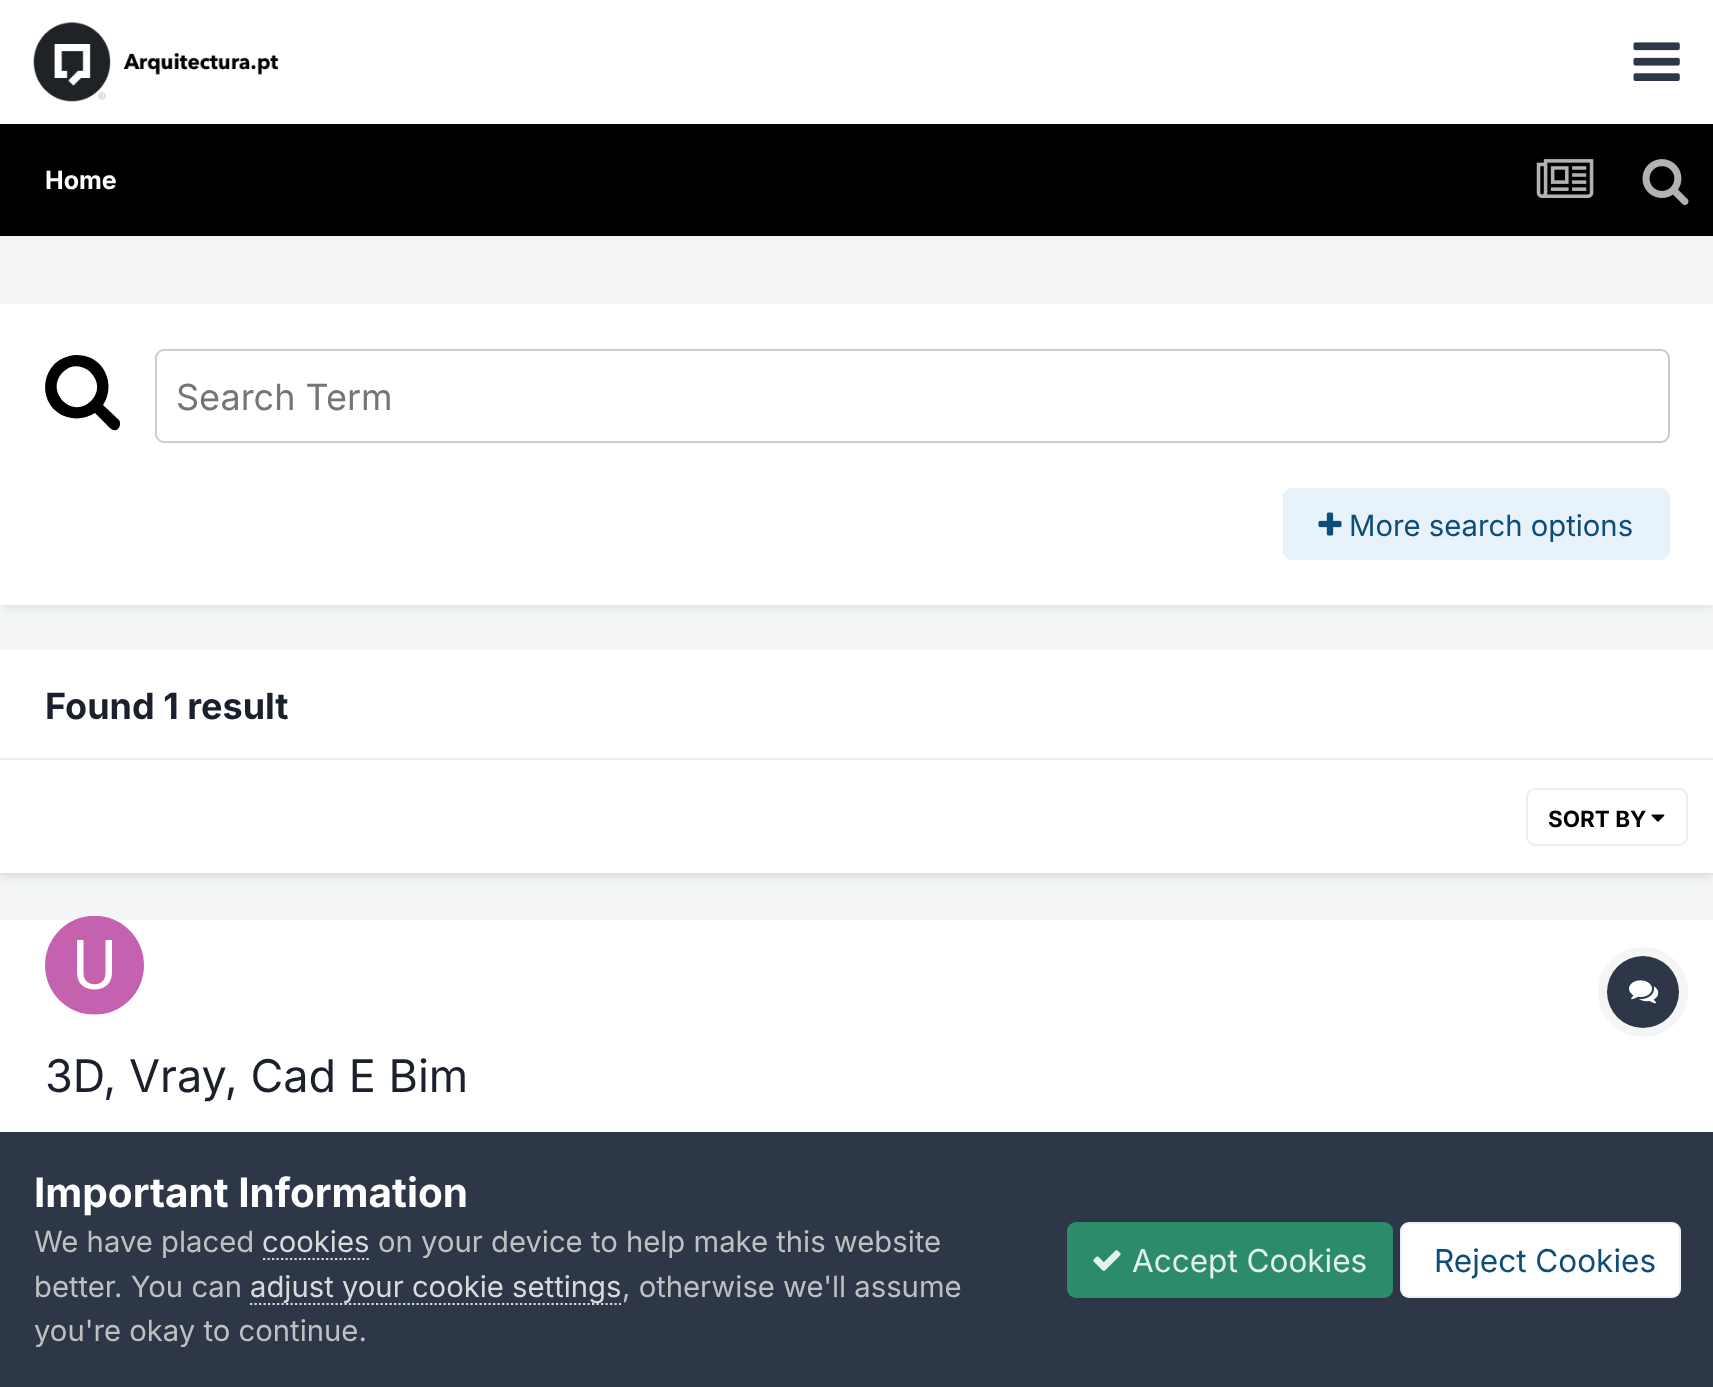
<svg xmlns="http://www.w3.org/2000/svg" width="1713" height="1387">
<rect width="100%" height="100%" fill="#f3f6f4"/>
<rect width="1713" height="124" fill="#fff"/>
<image x="33" y="22" width="246" height="80" href="media/1.png"/>
<image x="1633" y="42" width="47" height="39" href="media/2.png"/>
<rect y="124" width="1713" height="112" fill="#000"/>
<text x="45" y="189" style="font-family:Inter;font-size:25px;font-weight:bold;fill:#fff">Home</text>
<image x="1536" y="159" width="58" height="39" href="media/3.png"/>
<image x="1642" y="159" width="47" height="46" href="media/4.png"/>
<rect x="2" y="311" width="1710" height="297" fill="#2d37481a" filter="blur(4.5px)"/>
<rect y="304" width="1713" height="301" fill="#fff"/>
<path d="M91 401c19-19-10-47-28-29c-19 19 9 48 28 29zm29 23c0 2-1 4-2 5c-5 4-10-3-13-6l-10-10c-8 5-18 7-28 4c-30-9-29-53 2-61c7-2 15-1 22 2c17 8 23 31 12 47l16 15c1 1 1 3 1 4z" fill="#000"/>
<rect x="156" y="350" width="1513" height="92" rx="8" fill="none" stroke="#c6ccd5" stroke-width="2"/>
<text x="176" y="410" style="font-family:Inter;font-size:36px;fill:#757575">Search Term</text>
<rect x="1283" y="488" width="387" height="72" rx="9" fill="#e8f2fa"/>
<image x="1318" y="512" width="24" height="24" href="media/5.png"/>
<text x="1349" y="536" style="font-family:Inter;font-size:29.25px;fill:#0e4c79">More search options</text>
<rect x="2" y="657" width="1710" height="221" fill="#2d37481a" filter="blur(4.5px)"/>
<rect y="650" width="1713" height="223" fill="#fff"/>
<rect y="758" width="1713" height="2" fill="#eaecef"/>
<text x="45" y="719" style="font-family:Inter;font-size:36px;font-weight:bold;fill:#1a202c">Found 1 result</text>
<rect y="873" width="1713" height="2" fill="#e1e2e3"/>
<image x="1651" y="814" width="14" height="8" href="media/6.png"/>
<rect x="1527" y="789" width="160" height="56" rx="8" fill="none" stroke="#ebecec" stroke-width="2"/>
<text x="1548" y="827" style="font-family:Inter;font-size:22.5px;font-weight:bold;fill:#000">SORT BY</text>
<rect y="920" width="1713" height="212" fill="#fff"/>
<circle cx="94.5" cy="965.5" r="49.5" fill="#fff"/>
<image x="45" y="916" width="99" height="99" href="media/7.png"/>
<circle cx="1643" cy="992" r="40.5" fill="none" stroke="#f3f6f4" stroke-width="9"/>
<circle cx="1643" cy="992" r="36" fill="#2d3748"/>
<image x="1629" y="980" width="30" height="24" href="media/8.png"/>
<text x="45" y="1092" style="font-family:Inter;font-size:45px;fill:#1a202c">3D, Vray, Cad E Bim</text>
<rect y="1132" width="1713" height="255" fill="#2d3748"/>
<text x="34" y="1207" style="font-family:Inter;font-size:40.5px;font-weight:bold;fill:#fff">Important Information</text>
<text x="34" y="1252" style="font-family:Inter;font-size:29.25px;fill:#c0c0c0">We have placed</text>
<text x="262" y="1252" style="font-family:Inter;font-size:29.25px;fill:#dadada">cookies</text>
<path d="M263 1259h106" fill="none" stroke="#dadada" stroke-width="2.2" stroke-dasharray="2.25 2.25"/>
<text x="378" y="1252" style="font-family:Inter;font-size:29.25px;fill:#c0c0c0">on your device to help make this website</text>
<text x="34" y="1297" style="font-family:Inter;font-size:29.25px;fill:#c0c0c0">better. You can</text>
<path d="M250 1304h371" fill="none" stroke="#dadada" stroke-width="2.2" stroke-dasharray="2.25 2.25"/>
<text x="250" y="1297" style="font-family:Inter;font-size:29.25px;fill:#dadada">adjust your cookie settings</text>
<text x="622" y="1297" style="font-family:Inter;font-size:29.25px;fill:#c0c0c0">, otherwise we'll assume</text>
<text x="34" y="1341" style="font-family:Inter;font-size:29.25px;fill:#c0c0c0">you're okay to continue.</text>
<rect x="1067" y="1222" width="326" height="76" rx="9" fill="#2c8c69"/>
<image x="1093" y="1250" width="28" height="21" href="media/9.png"/>
<text x="1132" y="1272" style="font-family:Inter;font-size:31.5px;fill:#e3f3ec">Accept Cookies</text>
<rect x="1400" y="1222" width="281" height="76" rx="9" fill="#fff"/>
<rect x="1401" y="1223" width="279" height="74" rx="8" fill="none" stroke="#0e4c7912" stroke-width="2"/>
<text x="1434" y="1272" style="font-family:Inter;font-size:31.5px;fill:#0e4c79">Reject Cookies</text>
</svg>
